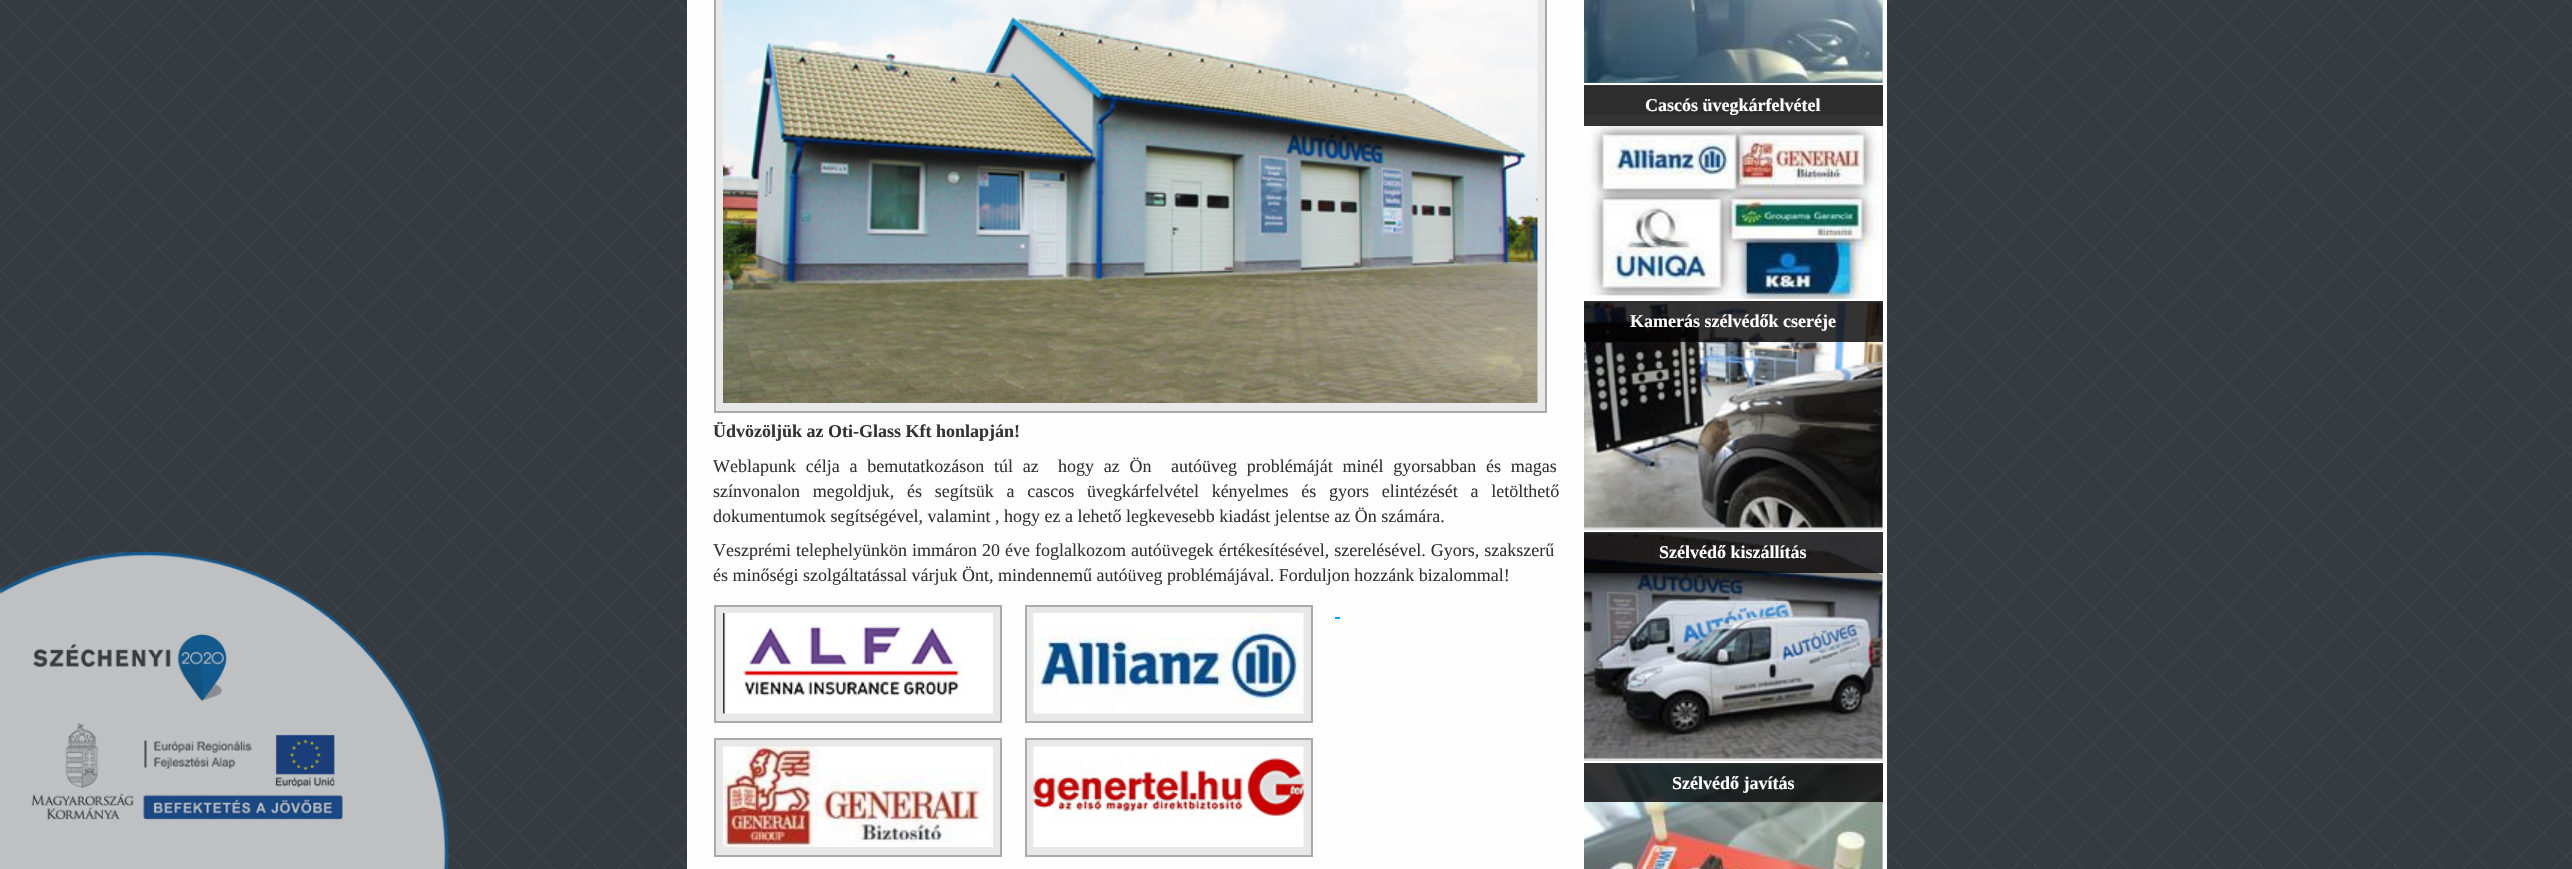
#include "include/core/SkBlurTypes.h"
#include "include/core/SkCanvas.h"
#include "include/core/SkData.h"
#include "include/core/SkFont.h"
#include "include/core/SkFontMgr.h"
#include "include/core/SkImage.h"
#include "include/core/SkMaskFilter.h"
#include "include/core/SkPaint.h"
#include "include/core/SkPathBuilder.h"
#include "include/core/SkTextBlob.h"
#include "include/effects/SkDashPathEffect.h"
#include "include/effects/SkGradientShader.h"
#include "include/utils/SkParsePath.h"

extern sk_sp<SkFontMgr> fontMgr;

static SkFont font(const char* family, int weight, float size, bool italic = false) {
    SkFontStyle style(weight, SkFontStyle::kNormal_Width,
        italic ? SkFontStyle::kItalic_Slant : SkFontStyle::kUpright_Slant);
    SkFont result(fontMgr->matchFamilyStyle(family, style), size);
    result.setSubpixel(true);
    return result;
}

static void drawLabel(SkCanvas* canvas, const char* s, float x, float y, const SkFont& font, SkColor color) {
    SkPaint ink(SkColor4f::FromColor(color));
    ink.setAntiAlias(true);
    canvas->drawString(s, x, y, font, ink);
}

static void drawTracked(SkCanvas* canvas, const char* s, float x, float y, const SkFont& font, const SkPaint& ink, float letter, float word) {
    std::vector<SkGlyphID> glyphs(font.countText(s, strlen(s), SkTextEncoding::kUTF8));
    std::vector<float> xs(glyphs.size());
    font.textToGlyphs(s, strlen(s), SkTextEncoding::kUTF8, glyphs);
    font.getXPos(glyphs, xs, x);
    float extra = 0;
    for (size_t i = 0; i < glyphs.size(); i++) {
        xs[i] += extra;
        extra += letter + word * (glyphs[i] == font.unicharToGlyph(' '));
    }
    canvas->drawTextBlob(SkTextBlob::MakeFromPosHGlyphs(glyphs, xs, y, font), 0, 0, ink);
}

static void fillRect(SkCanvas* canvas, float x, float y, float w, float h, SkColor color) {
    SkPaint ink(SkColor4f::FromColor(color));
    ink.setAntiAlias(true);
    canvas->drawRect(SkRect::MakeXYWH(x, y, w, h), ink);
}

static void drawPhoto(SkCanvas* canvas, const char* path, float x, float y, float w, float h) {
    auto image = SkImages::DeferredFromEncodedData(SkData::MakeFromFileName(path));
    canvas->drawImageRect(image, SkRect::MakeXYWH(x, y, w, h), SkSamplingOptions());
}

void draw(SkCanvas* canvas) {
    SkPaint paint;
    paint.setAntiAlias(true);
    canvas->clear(0xFFFFFFFF);
    drawPhoto(canvas, "assets/img1.png", 0, 0, 2572, 869);
    drawPhoto(canvas, "assets/img2.png", 0, 552, 449, 317);
    fillRect(canvas, 687, 0, 1200, 869, 0xFFFEFEFE);
    paint.setColor(0xFFE8E8E8);
    canvas->drawRect(SkRect::MakeXYWH(715, -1, 831, 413), paint);
    paint.setStroke(true);
    paint.setStrokeWidth(2);
    paint.setColor(0xFFAAAAAA);
    canvas->drawRect(SkRect::MakeXYWH(715, -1, 831, 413), paint);
    drawPhoto(canvas, "assets/img3.png", 723, 0, 815, 403);
    SkFont font1 = font("Liberation Serif", 700, 18);
    drawLabel(canvas, "Üdvözöljük az Oti-Glass Kft honlapján!", 713, 437, font1, 0xFF333333);
    SkFont font2 = font("Liberation Serif", 400, 18);
    paint.setStroke(false);
    paint.setColor(0xFF333333);
    drawTracked(canvas, "Weblapunk célja a bemutatkozáson túl az  hogy az Ön  autóüveg problémáját minél gyorsabban és magas", 713, 472, font2, paint, 0, 5.25f);
    drawTracked(canvas, "színvonalon megoldjuk, és segítsük a cascos üvegkárfelvétel kényelmes és gyors elintézését a letölthető", 713, 497, font2, paint, 0, 8.25f);
    drawLabel(canvas, "dokumentumok segítségével, valamint , hogy ez a lehető legkevesebb kiadást jelentse az Ön számára.", 713, 522, font2, 0xFF333333);
    drawTracked(canvas, "Veszprémi telephelyünkön immáron 20 éve foglalkozom autóüvegek értékesítésével, szerelésével. Gyors, szakszerű", 713, 556, font2, paint, 0, 0.5f);
    drawLabel(canvas, "és minőségi szolgáltatással várjuk Önt, mindennemű autóüveg problémájával. Forduljon hozzánk bizalommal!", 713, 581, font2, 0xFF333333);
    paint.setColor(0xFFE8E8E8);
    canvas->drawRect(SkRect::MakeXYWH(715, 606, 286, 116), paint);
    paint.setStroke(true);
    paint.setColor(0xFFAAAAAA);
    canvas->drawRect(SkRect::MakeXYWH(715, 606, 286, 116), paint);
    drawPhoto(canvas, "assets/img4.png", 723, 613, 270, 101);
    paint.setStroke(false);
    paint.setColor(0xFFE8E8E8);
    canvas->drawRect(SkRect::MakeXYWH(1026, 606, 286, 116), paint);
    paint.setStroke(true);
    paint.setColor(0xFFAAAAAA);
    canvas->drawRect(SkRect::MakeXYWH(1026, 606, 286, 116), paint);
    drawPhoto(canvas, "assets/img5.png", 1033, 613, 271, 101);
    fillRect(canvas, 1335, 617, 5, 2, 0xFF00A4EA);
    paint.setStroke(false);
    paint.setColor(0xFFE8E8E8);
    canvas->drawRect(SkRect::MakeXYWH(715, 739, 286, 117), paint);
    paint.setStroke(true);
    paint.setColor(0xFFAAAAAA);
    canvas->drawRect(SkRect::MakeXYWH(715, 739, 286, 117), paint);
    drawPhoto(canvas, "assets/img6.png", 723, 746, 270, 101);
    paint.setStroke(false);
    paint.setColor(0xFFE8E8E8);
    canvas->drawRect(SkRect::MakeXYWH(1026, 739, 286, 117), paint);
    paint.setStroke(true);
    paint.setColor(0xFFAAAAAA);
    canvas->drawRect(SkRect::MakeXYWH(1026, 739, 286, 117), paint);
    drawPhoto(canvas, "assets/img7.png", 1033, 746, 271, 101);
    fillRect(canvas, 1584, 0, 299, 869, 0xFFDDDDDD);
    drawPhoto(canvas, "assets/img8.png", 1584, 0, 299, 83);
    fillRect(canvas, 1584, 83, 299, 3, 0xFFFEFEFE);
    drawPhoto(canvas, "assets/img9.png", 1584, 115, 299, 184);
    fillRect(canvas, 1584, 299, 299, 3, 0xFFFEFEFE);
    fillRect(canvas, 1584, 85, 299, 41, 0xCC010001);
    drawLabel(canvas, "Cascós üvegkárfelvétel", 1645, 111, font1, 0xFFFFFFFF);
    drawPhoto(canvas, "assets/img10.png", 1584, 302, 299, 226);
    fillRect(canvas, 1584, 530, 299, 3, 0xFFFEFEFE);
    fillRect(canvas, 1584, 301, 299, 41, 0xCC010001);
    drawLabel(canvas, "Kamerás szélvédők cseréje", 1630, 327, font1, 0xFFFFFFFF);
    drawPhoto(canvas, "assets/img11.png", 1584, 533, 299, 226);
    fillRect(canvas, 1584, 761, 299, 3, 0xFFFEFEFE);
    fillRect(canvas, 1584, 532, 299, 41, 0xCC010001);
    drawLabel(canvas, "Szélvédő kiszállítás", 1659, 558, font1, 0xFFFFFFFF);
    drawPhoto(canvas, "assets/img12.png", 1584, 764, 299, 105);
    fillRect(canvas, 1584, 763, 299, 39, 0xCC010001);
    drawLabel(canvas, "Szélvédő javítás", 1672, 789, font1, 0xFFFFFFFF);
}
